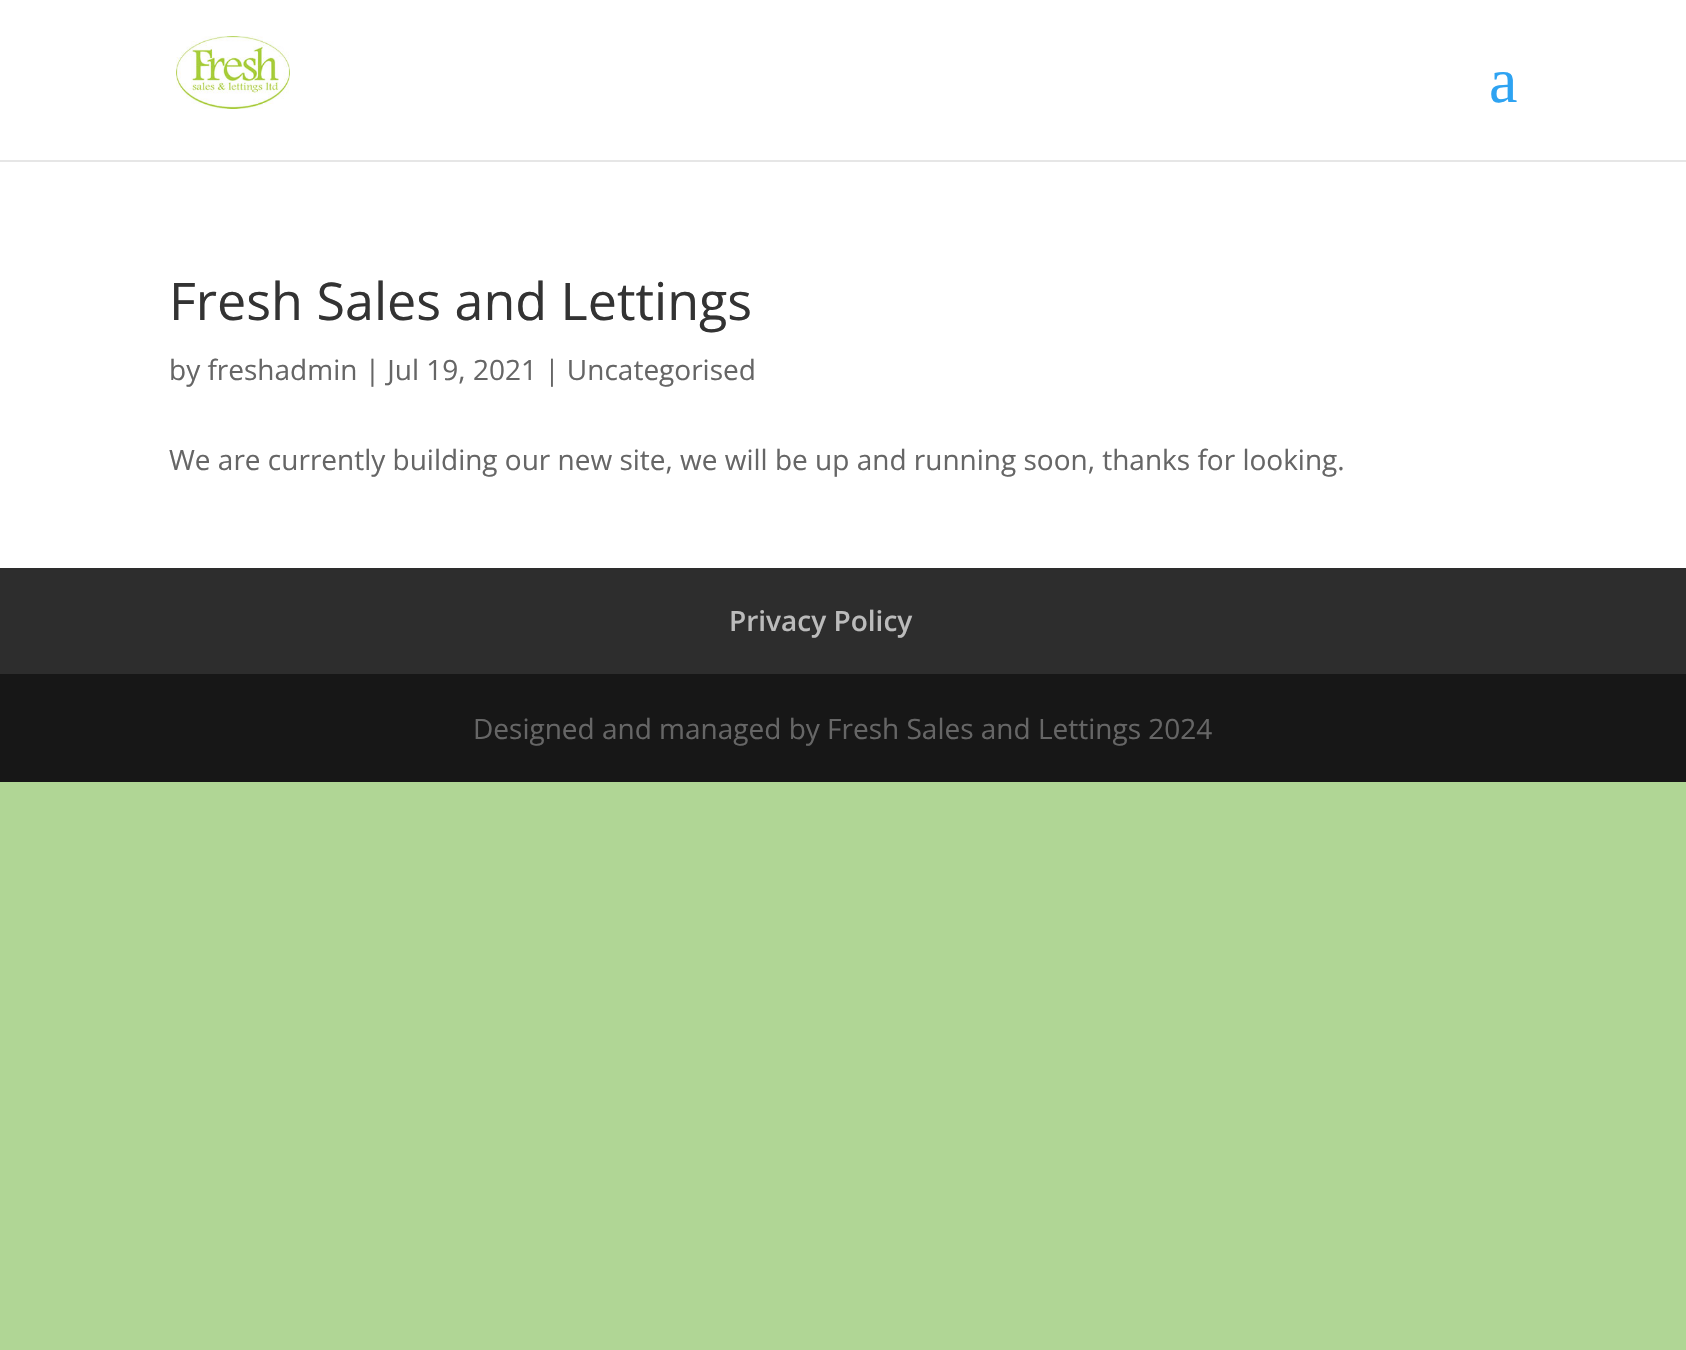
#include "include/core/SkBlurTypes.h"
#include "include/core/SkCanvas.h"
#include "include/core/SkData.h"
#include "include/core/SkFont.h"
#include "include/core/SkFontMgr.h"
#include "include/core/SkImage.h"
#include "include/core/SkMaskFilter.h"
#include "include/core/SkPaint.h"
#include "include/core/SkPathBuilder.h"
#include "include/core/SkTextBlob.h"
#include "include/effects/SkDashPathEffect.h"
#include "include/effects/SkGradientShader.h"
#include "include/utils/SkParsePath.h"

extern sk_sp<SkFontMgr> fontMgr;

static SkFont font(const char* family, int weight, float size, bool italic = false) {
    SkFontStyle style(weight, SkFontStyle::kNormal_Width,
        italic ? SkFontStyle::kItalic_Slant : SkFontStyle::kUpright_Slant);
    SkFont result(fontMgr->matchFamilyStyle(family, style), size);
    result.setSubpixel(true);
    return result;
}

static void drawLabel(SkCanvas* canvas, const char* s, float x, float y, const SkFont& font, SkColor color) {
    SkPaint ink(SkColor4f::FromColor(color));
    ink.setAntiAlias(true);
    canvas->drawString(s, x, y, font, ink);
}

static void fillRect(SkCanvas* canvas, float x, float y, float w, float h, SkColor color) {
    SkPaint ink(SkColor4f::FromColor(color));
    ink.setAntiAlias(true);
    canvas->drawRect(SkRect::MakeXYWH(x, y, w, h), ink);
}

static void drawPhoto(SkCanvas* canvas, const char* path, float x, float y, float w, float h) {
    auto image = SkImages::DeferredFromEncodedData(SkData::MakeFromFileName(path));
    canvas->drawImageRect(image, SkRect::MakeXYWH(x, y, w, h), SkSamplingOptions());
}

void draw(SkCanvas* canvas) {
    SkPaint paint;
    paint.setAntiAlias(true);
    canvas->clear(0xFFB0D695);
    fillRect(canvas, 0, 160, 1686, 2, 0xFFE6E6E6);
    fillRect(canvas, 0, 0, 1686, 160, 0xFFFFFFFF);
    drawPhoto(canvas, "assets/img1.png", 176, 36, 114, 73);
    SkFont font1 = font("Liberation Serif", 400, 64);
    drawLabel(canvas, "a", 1489, 102, font1, 0xFF2EA3F2);
    fillRect(canvas, 0, 162, 1686, 406, 0xFFFFFFFF);
    SkFont font2 = font("Open Sans", 400, 52);
    drawLabel(canvas, "Fresh Sales and Lettings", 169, 320, font2, 0xFF333333);
    SkFont font3 = font("Open Sans", 400, 28);
    drawLabel(canvas, "by freshadmin | Jul 19, 2021 | Uncategorised", 169, 380, font3, 0xFF666666);
    drawLabel(canvas, "We are currently building our new site, we will be up and running soon, thanks for looking.", 169, 470, font3, 0xFF666666);
    fillRect(canvas, 0, 568, 1686, 106, 0xFF2D2D2D);
    SkFont font4 = font("Open Sans", 600, 28);
    drawLabel(canvas, "Privacy Policy", 729, 631, font4, 0xFFBBBBBB);
    fillRect(canvas, 0, 674, 1686, 108, 0xFF171717);
    drawLabel(canvas, "Designed and managed by Fresh Sales and Lettings 2024", 473, 739, font3, 0xFF666666);
}
